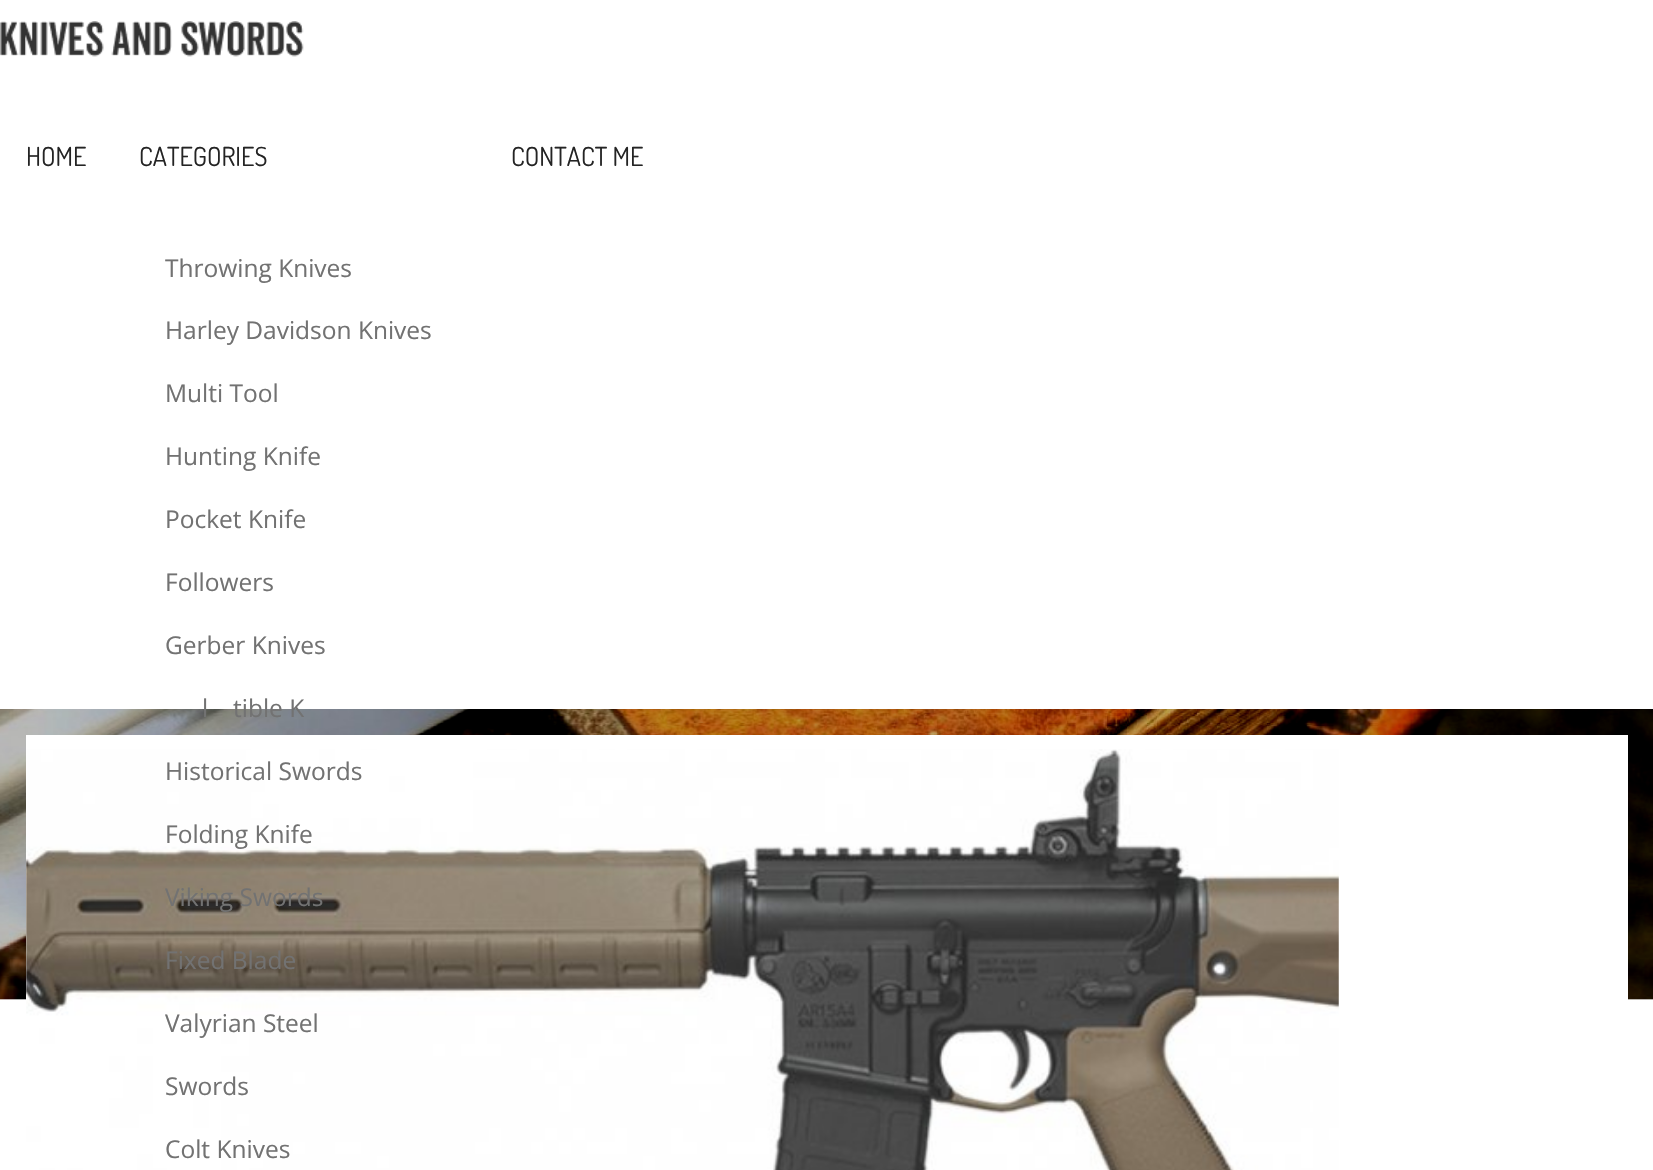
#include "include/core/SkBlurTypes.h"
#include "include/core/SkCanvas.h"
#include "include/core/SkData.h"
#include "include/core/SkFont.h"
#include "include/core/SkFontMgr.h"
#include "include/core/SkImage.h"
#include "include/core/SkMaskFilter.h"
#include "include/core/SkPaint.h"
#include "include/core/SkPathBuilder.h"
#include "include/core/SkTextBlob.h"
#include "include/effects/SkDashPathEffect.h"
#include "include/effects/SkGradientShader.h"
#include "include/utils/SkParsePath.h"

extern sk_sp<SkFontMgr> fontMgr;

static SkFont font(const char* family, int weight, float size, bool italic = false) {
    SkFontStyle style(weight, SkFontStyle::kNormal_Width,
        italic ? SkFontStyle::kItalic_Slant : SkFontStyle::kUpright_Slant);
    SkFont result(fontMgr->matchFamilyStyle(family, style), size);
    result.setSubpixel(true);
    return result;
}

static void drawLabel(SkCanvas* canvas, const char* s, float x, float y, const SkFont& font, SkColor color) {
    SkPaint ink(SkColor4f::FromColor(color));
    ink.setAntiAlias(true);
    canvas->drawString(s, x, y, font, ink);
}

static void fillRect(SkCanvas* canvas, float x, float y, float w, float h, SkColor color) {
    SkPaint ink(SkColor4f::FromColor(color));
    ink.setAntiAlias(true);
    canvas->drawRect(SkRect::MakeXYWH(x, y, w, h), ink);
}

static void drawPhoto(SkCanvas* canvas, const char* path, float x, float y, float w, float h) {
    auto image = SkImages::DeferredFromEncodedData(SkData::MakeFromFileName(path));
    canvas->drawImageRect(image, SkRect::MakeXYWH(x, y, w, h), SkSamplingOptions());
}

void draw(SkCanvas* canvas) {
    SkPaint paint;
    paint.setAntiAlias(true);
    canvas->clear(0xFFFFFFFF);
    drawPhoto(canvas, "assets/img1.png", 0, 21, 304, 36);
    SkFont font1 = font("Dosis", 400, 26.25f);
    drawLabel(canvas, "HOME", 26, 166, font1, 0xFF242424);
    drawLabel(canvas, "CATEGORIES", 139, 166, font1, 0xFF242424);
    SkFont font2 = font("Open Sans", 400, 24.5f);
    drawLabel(canvas, "Throwing Knives", 165, 277, font2, 0xFF727272);
    drawLabel(canvas, "Harley Davidson Knives", 165, 339, font2, 0xFF727272);
    drawLabel(canvas, "Multi Tool", 165, 402, font2, 0xFF727272);
    drawLabel(canvas, "Hunting Knife", 165, 465, font2, 0xFF727272);
    drawLabel(canvas, "Pocket Knife", 165, 528, font2, 0xFF727272);
    drawLabel(canvas, "Followers", 165, 591, font2, 0xFF727272);
    drawLabel(canvas, "Gerber Knives", 165, 654, font2, 0xFF727272);
    drawPhoto(canvas, "assets/img2.png", 0, 709, 1653, 291);
    drawLabel(canvas, "l", 202, 717, font2, 0xFF727272);
    drawLabel(canvas, "tible K", 233, 717, font2, 0xFF727272);
    fillRect(canvas, 26, 735, 1602, 265, 0xFFFFFFFF);
    drawPhoto(canvas, "assets/img3.png", 26, 749, 1313, 421);
    drawLabel(canvas, "Historical Swords", 165, 780, font2, 0xFF727272);
    drawLabel(canvas, "Folding Knife", 165, 843, font2, 0xFF727272);
    drawLabel(canvas, "Viking Swords", 165, 906, font2, 0xFF727272);
    drawLabel(canvas, "Fixed Blade", 165, 969, font2, 0xFF727272);
    drawLabel(canvas, "Valyrian Steel", 165, 1032, font2, 0xFF727272);
    drawLabel(canvas, "Swords", 165, 1095, font2, 0xFF727272);
    drawLabel(canvas, "Colt Knives", 165, 1158, font2, 0xFF727272);
    drawLabel(canvas, "CONTACT ME", 511, 166, font1, 0xFF242424);
}
